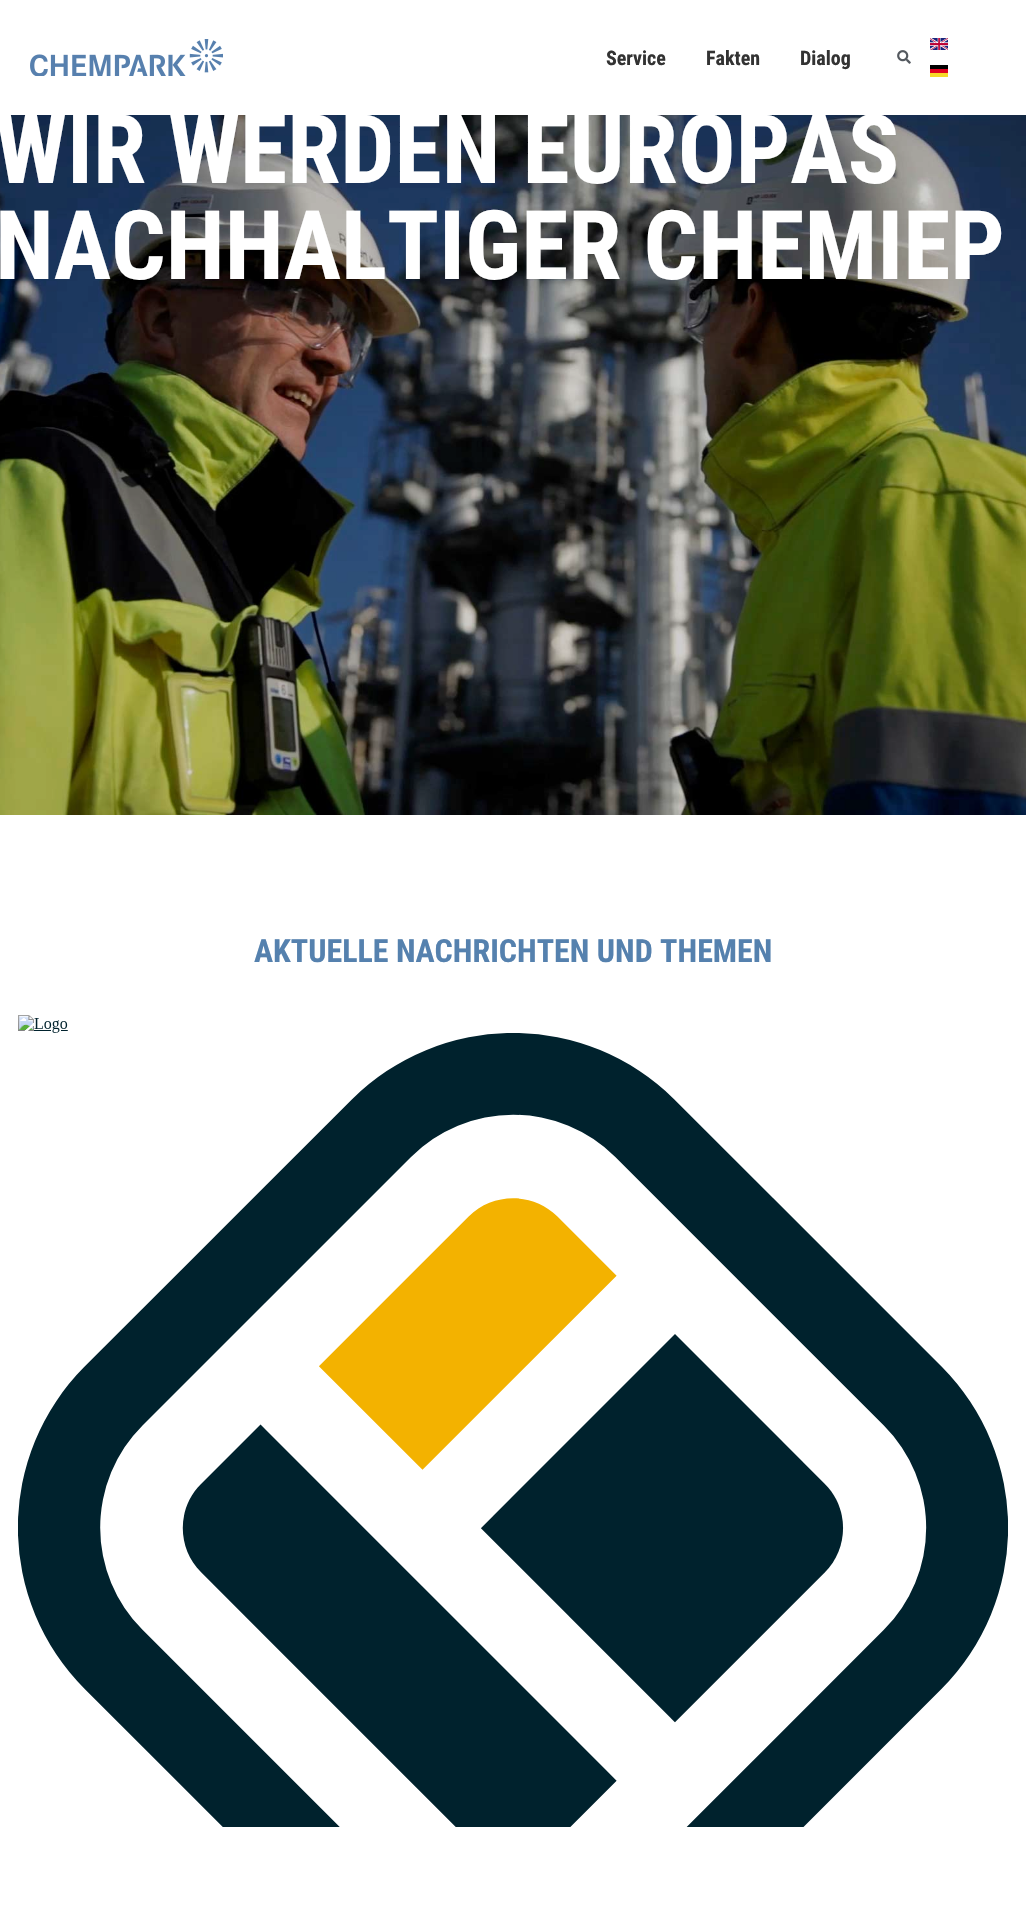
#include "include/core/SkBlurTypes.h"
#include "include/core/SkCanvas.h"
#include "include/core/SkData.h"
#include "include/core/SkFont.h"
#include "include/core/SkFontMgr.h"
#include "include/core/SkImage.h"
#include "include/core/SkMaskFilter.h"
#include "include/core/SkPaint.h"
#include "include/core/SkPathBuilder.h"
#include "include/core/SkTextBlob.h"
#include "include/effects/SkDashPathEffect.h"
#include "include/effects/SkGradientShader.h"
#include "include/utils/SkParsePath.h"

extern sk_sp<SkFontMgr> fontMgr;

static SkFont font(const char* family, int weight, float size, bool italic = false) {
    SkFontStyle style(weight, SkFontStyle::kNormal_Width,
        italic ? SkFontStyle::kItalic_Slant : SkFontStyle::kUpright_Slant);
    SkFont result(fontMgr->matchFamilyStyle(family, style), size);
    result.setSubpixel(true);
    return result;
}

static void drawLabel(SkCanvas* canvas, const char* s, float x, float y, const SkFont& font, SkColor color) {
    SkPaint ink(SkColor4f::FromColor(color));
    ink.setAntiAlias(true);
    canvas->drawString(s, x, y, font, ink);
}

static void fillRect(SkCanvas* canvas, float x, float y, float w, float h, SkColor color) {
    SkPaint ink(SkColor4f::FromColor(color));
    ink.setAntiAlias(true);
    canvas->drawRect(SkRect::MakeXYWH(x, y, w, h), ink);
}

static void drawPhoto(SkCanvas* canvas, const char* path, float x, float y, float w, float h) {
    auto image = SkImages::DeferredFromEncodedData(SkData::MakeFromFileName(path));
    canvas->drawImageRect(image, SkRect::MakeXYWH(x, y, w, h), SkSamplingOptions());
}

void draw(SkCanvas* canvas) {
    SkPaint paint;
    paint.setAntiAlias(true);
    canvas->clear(0xFFFFFFFF);
    drawPhoto(canvas, "assets/img1.png", 30, 39, 193, 37);
    SkFont font1 = font("Roboto Condensed", 700, 20);
    drawLabel(canvas, "Service", 606, 65, font1, 0xFF333333);
    drawLabel(canvas, "Fakten", 706, 65, font1, 0xFF333333);
    drawLabel(canvas, "Dialog", 800, 65, font1, 0xFF333333);
    drawPhoto(canvas, "assets/img2.png", 897, 50, 14, 14);
    drawPhoto(canvas, "assets/img3.png", 930, 38, 18, 12);
    fillRect(canvas, 930, 65, 18, 4, 0xFF000000);
    fillRect(canvas, 930, 69, 18, 4, 0xFFE1001F);
    fillRect(canvas, 930, 73, 18, 4, 0xFFF6D928);
    drawPhoto(canvas, "assets/img4.png", 0, 115, 1026, 700);
    SkFont font2 = font("Roboto Condensed", 700, 96);
    drawLabel(canvas, "WIR WERDEN EUROPAS", -5, 183, font2, 0xFFFFFFFF);
    drawLabel(canvas, "NACHHALTIGER CHEMIEP", -5, 279, font2, 0xFFFFFFFF);
    SkFont font3 = font("Roboto Condensed", 700, 32);
    drawLabel(canvas, "AKTUELLE NACHRICHTEN UND THEMEN", 254, 962, font3, 0xFF5581AE);
    drawPhoto(canvas, "assets/img5.png", 18, 1015, 990, 812);
}
